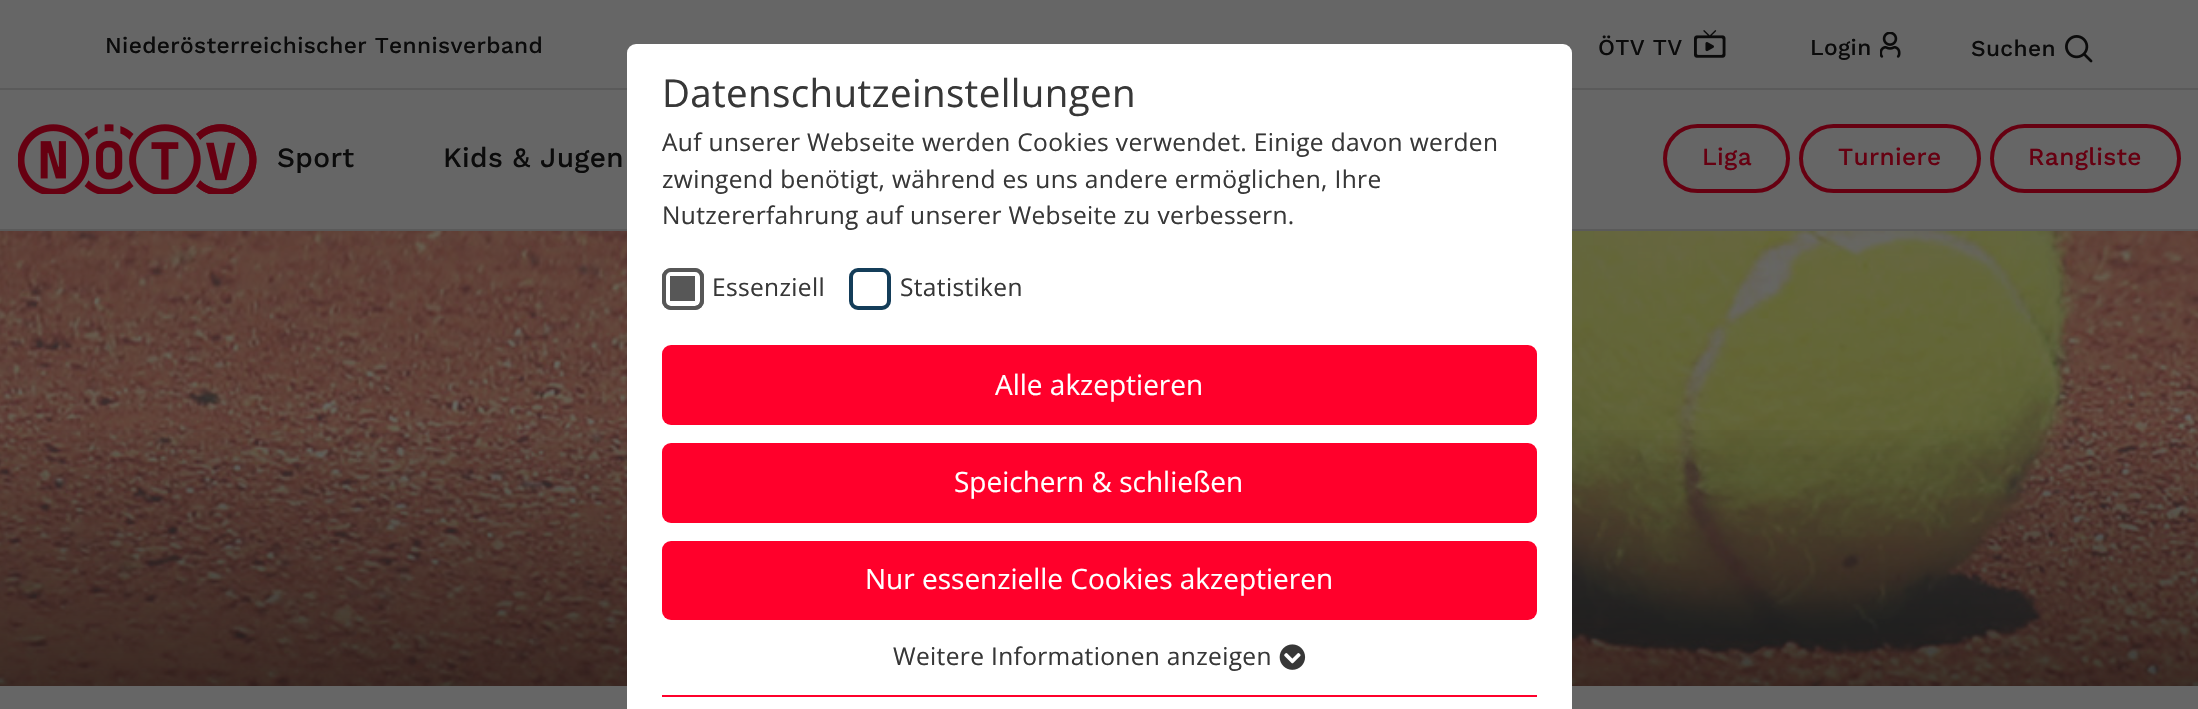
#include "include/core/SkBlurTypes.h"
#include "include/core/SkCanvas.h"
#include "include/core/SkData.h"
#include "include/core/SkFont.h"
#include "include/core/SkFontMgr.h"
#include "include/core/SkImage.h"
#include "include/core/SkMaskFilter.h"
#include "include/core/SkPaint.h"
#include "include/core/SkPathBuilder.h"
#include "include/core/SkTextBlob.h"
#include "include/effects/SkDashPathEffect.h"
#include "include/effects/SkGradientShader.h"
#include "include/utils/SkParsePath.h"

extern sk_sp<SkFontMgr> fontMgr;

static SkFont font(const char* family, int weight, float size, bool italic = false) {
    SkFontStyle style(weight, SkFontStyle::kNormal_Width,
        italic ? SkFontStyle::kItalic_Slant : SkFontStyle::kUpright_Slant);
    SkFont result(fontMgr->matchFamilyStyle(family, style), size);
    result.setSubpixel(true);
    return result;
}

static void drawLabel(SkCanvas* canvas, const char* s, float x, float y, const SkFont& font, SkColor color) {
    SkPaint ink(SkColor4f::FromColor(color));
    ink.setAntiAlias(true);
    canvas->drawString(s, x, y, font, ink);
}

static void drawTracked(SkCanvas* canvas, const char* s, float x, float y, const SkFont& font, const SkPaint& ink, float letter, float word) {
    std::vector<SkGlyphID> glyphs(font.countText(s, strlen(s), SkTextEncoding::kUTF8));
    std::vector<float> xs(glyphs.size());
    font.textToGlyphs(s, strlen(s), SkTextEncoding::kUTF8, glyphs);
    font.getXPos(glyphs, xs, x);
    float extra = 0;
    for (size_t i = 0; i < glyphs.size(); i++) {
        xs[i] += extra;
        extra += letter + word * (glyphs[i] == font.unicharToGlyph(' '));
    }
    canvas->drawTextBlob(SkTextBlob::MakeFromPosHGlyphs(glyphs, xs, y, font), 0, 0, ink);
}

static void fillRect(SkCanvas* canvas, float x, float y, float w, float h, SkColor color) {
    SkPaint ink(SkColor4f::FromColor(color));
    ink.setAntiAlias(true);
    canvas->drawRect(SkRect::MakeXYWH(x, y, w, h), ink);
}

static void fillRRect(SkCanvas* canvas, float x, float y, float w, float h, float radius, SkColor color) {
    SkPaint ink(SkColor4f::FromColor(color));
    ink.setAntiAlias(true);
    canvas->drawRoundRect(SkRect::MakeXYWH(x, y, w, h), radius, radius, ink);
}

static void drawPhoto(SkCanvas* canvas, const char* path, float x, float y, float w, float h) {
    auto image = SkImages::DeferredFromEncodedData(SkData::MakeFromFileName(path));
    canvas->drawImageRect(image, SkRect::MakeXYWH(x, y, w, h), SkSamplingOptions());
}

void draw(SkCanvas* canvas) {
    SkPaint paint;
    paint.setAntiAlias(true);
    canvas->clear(0xFF666666);
    fillRect(canvas, 0, 88, 2198, 2, 0xFF5A5A5A);
    SkFont font1 = font("Work Sans", 500, 22.75f);
    paint.setColor(0xFF0B0B0B);
    drawTracked(canvas, "Niederösterreichischer Tennisverband", 105, 53, font1, paint, 0.35f, 0);
    drawTracked(canvas, "ÖTV TV", 1598, 55, font1, paint, 0.35f, 0);
    drawPhoto(canvas, "assets/img1.png", 1694, 30, 32, 28);
    drawTracked(canvas, "Login", 1810, 55, font1, paint, 0.35f, 0);
    drawPhoto(canvas, "assets/img2.png", 1880, 32, 21, 26);
    drawTracked(canvas, "Suchen", 1971, 56, font1, paint, 0.35f, 0);
    drawPhoto(canvas, "assets/img3.png", 2065, 35, 28, 28);
    fillRect(canvas, 0, 229, 2198, 2, 0xFF5A5A5A);
    drawPhoto(canvas, "assets/img4.png", 18, 124, 239, 70);
    SkFont font2 = font("Work Sans", 500, 28);
    drawTracked(canvas, "Sport", 277, 167, font2, paint, 0.35f, 0);
    drawTracked(canvas, "Kids & Jugen", 443, 167, font2, paint, 0.35f, 0);
    paint.setStroke(true);
    paint.setStrokeWidth(4);
    paint.setColor(0xFF660011);
    canvas->drawRoundRect(SkRect::MakeXYWH(1665, 126, 123, 65), 32.5f, 32.5f, paint);
    SkFont font3 = font("Work Sans", 500, 24.5f);
    paint.setStroke(false);
    drawTracked(canvas, "Liga", 1702, 165, font3, paint, 0.35f, 0);
    paint.setStroke(true);
    canvas->drawRoundRect(SkRect::MakeXYWH(1801, 126, 178, 65), 32.5f, 32.5f, paint);
    paint.setStroke(false);
    drawTracked(canvas, "Turniere", 1838, 165, font3, paint, 0.35f, 0);
    paint.setStroke(true);
    canvas->drawRoundRect(SkRect::MakeXYWH(1992, 126, 187, 65), 32.5f, 32.5f, paint);
    paint.setStroke(false);
    drawTracked(canvas, "Rangliste", 2028, 165, font3, paint, 0.35f, 0);
    drawPhoto(canvas, "assets/img5.png", 0, 231, 2198, 455);
    {
        const SkColor colors[] = {0x00000000, 0x66000000};
        const float stops[] = {0, 1};
        const SkPoint ends[] = {{1099, 413}, {1099, 686}};
        paint.setShader(SkGradientShader::MakeLinear(ends, colors, stops, 2, SkTileMode::kClamp));
        paint.setAlpha(255);
    }
    canvas->drawRect(SkRect::MakeXYWH(0, 430, 2198, 256), paint);
    fillRRect(canvas, 627, 44, 945, 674, 9, 0xFFFFFFFF);
    SkFont font4 = font("Open Sans", 400, 38.5f);
    paint.setShader(nullptr);
    paint.setColor(0xFF373737);
    drawTracked(canvas, "Datenschutzeinstellungen", 662, 107, font4, paint, 0.35f, 0);
    SkFont font5 = font("Open Sans", 400, 24.5f);
    drawTracked(canvas, "Auf unserer Webseite werden Cookies verwendet. Einige davon werden", 662, 151, font5, paint, 0.35f, 0);
    drawTracked(canvas, "zwingend benötigt, während es uns andere ermöglichen, Ihre", 662, 188, font5, paint, 0.35f, 0);
    drawTracked(canvas, "Nutzererfahrung auf unserer Webseite zu verbessern.", 662, 224, font5, paint, 0.35f, 0);
    fillRRect(canvas, 662, 268, 42, 42, 9, 0xFF575757);
    paint.setStroke(true);
    paint.setStrokeWidth(5);
    paint.setColor(0xFFFFFFFF);
    canvas->drawRoundRect(SkRect::MakeXYWH(667.5f, 273.5f, 30, 30), 2.5f, 2.5f, paint);
    paint.setStrokeWidth(4);
    paint.setColor(0xFF575757);
    canvas->drawRoundRect(SkRect::MakeXYWH(664, 270, 38, 38), 7, 7, paint);
    paint.setStroke(false);
    paint.setColor(0xFF373737);
    drawTracked(canvas, "Essenziell", 712, 296, font5, paint, 0.35f, 0);
    paint.setStroke(true);
    paint.setColor(0xFF143D59);
    canvas->drawRoundRect(SkRect::MakeXYWH(851, 270, 38, 38), 7, 7, paint);
    paint.setStroke(false);
    paint.setColor(0xFF373737);
    drawTracked(canvas, "Statistiken", 900, 296, font5, paint, 0.35f, 0);
    fillRRect(canvas, 662, 345, 875, 80, 9, 0xFFFF002B);
    SkFont font6 = font("Open Sans", 400, 28);
    drawLabel(canvas, "Alle akzeptieren", 995, 395, font6, 0xFFFFFFFF);
    fillRRect(canvas, 662, 443, 875, 80, 9, 0xFFFF002B);
    drawLabel(canvas, "Speichern & schließen", 954, 492, font6, 0xFFFFFFFF);
    fillRRect(canvas, 662, 541, 875, 79, 9, 0xFFFF002B);
    drawLabel(canvas, "Nur essenzielle Cookies akzeptieren", 865, 589, font6, 0xFFFFFFFF);
    drawTracked(canvas, "Weitere Informationen anzeigen", 893, 665, font5, paint, 0.35f, 0);
    drawPhoto(canvas, "assets/img6.png", 1279, 644, 27, 26);
    fillRect(canvas, 662, 695, 875, 2, 0xFFFF002B);
}
